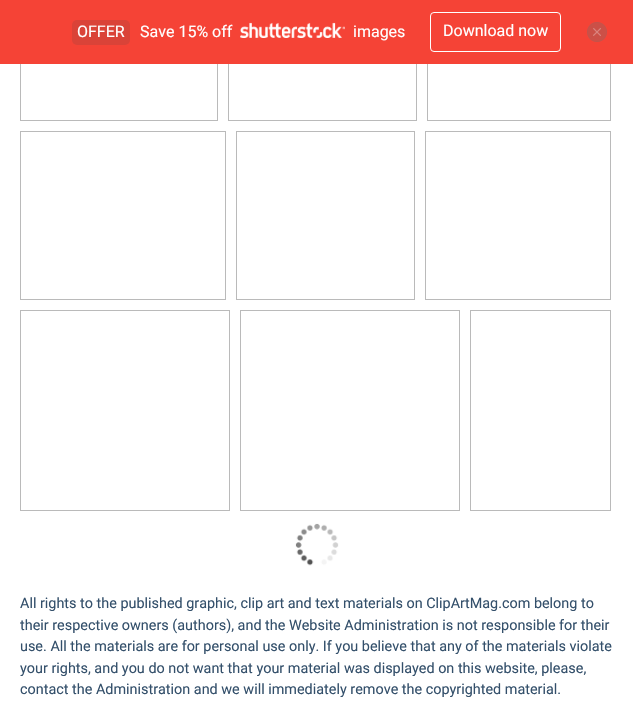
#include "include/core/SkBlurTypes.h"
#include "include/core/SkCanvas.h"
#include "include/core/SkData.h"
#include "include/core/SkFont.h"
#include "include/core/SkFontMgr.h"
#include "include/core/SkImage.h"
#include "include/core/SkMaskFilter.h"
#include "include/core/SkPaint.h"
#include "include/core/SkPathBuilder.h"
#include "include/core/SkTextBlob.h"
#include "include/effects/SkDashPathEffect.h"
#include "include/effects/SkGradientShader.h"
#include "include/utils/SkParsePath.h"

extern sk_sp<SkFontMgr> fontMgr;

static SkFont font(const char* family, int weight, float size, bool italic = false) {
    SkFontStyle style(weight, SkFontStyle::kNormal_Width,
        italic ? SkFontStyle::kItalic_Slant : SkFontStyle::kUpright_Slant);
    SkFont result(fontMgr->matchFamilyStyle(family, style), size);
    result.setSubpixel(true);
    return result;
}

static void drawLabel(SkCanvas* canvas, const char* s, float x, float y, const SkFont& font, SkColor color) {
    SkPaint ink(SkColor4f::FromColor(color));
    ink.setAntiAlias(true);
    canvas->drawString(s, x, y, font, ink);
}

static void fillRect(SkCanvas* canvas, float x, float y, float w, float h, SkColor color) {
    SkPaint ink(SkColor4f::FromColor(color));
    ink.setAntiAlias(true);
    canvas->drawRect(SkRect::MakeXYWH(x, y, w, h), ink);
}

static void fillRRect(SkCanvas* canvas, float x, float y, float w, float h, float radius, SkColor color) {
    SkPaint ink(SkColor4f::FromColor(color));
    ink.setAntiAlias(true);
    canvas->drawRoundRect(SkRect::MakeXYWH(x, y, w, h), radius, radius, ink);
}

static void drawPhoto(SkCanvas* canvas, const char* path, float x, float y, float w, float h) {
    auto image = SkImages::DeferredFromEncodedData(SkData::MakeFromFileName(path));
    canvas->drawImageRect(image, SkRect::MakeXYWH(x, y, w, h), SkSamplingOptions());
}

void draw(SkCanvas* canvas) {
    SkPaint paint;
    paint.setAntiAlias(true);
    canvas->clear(0xFFFFFFFF);
    fillRect(canvas, 0, 0, 633, 64, 0xFFF54336);
    fillRRect(canvas, 72, 20, 58, 25, 5, 0xFFDA4338);
    SkFont font1 = font("Roboto", 400, 16);
    drawLabel(canvas, "OFFER", 77, 37, font1, 0xFFFFFFFF);
    drawLabel(canvas, "Save 15% off", 140, 37, font1, 0xFFFFFFFF);
    drawPhoto(canvas, "assets/img1.png", 240, 22, 105, 16);
    drawLabel(canvas, "images", 353, 37, font1, 0xFFFFFFFF);
    paint.setStroke(true);
    paint.setStrokeWidth(1);
    paint.setColor(0xFFFFFFFF);
    canvas->drawRoundRect(SkRect::MakeXYWH(430.5f, 12.5f, 130, 39), 3.5f, 3.5f, paint);
    drawLabel(canvas, "Download now", 443, 36, font1, 0xFFFFFFFF);
    drawPhoto(canvas, "assets/img2.png", 587, 22, 20, 20);
    fillRect(canvas, 20, 120, 198, 1, 0xFFBABABA);
    fillRect(canvas, 217, 64, 1, 56, 0xFFBABABA);
    fillRect(canvas, 20, 64, 1, 56, 0xFFBABABA);
    fillRect(canvas, 228, 120, 189, 1, 0xFFBABABA);
    fillRect(canvas, 416, 64, 1, 56, 0xFFBABABA);
    fillRect(canvas, 228, 64, 1, 56, 0xFFBABABA);
    fillRect(canvas, 427, 120, 184, 1, 0xFFBABABA);
    fillRect(canvas, 610, 64, 1, 56, 0xFFBABABA);
    fillRect(canvas, 427, 64, 1, 56, 0xFFBABABA);
    fillRect(canvas, 20, 299, 206, 1, 0xFFBABABA);
    fillRect(canvas, 20, 131, 206, 1, 0xFFBABABA);
    fillRect(canvas, 225, 131, 1, 168, 0xFFBABABA);
    fillRect(canvas, 20, 131, 1, 168, 0xFFBABABA);
    fillRect(canvas, 236, 299, 179, 1, 0xFFBABABA);
    fillRect(canvas, 236, 131, 179, 1, 0xFFBABABA);
    fillRect(canvas, 414, 131, 1, 168, 0xFFBABABA);
    fillRect(canvas, 236, 131, 1, 168, 0xFFBABABA);
    fillRect(canvas, 425, 299, 186, 1, 0xFFBABABA);
    fillRect(canvas, 425, 131, 186, 1, 0xFFBABABA);
    fillRect(canvas, 610, 131, 1, 168, 0xFFBABABA);
    fillRect(canvas, 425, 131, 1, 168, 0xFFBABABA);
    fillRect(canvas, 20, 510, 210, 1, 0xFFBABABA);
    fillRect(canvas, 20, 310, 210, 1, 0xFFBABABA);
    fillRect(canvas, 229, 310, 1, 200, 0xFFBABABA);
    fillRect(canvas, 20, 310, 1, 200, 0xFFBABABA);
    fillRect(canvas, 240, 510, 220, 1, 0xFFBABABA);
    fillRect(canvas, 240, 310, 220, 1, 0xFFBABABA);
    fillRect(canvas, 459, 310, 1, 200, 0xFFBABABA);
    fillRect(canvas, 240, 310, 1, 200, 0xFFBABABA);
    fillRect(canvas, 470, 510, 141, 1, 0xFFBABABA);
    fillRect(canvas, 470, 310, 141, 1, 0xFFBABABA);
    fillRect(canvas, 610, 310, 1, 200, 0xFFBABABA);
    fillRect(canvas, 470, 310, 1, 200, 0xFFBABABA);
    drawPhoto(canvas, "assets/img3.png", 295, 523, 44, 43);
    SkFont font2 = font("Roboto", 400, 14.4f);
    drawLabel(canvas, "All rights to the published graphic, clip art and text materials on ClipArtMag.com belong to", 20, 608, font2, 0xFF34506B);
    drawLabel(canvas, "their respective owners (authors), and the Website Administration is not responsible for their", 20, 630, font2, 0xFF34506B);
    drawLabel(canvas, "use. All the materials are for personal use only. If you believe that any of the materials violate", 20, 651, font2, 0xFF34506B);
    drawLabel(canvas, "your rights, and you do not want that your material was displayed on this website, please,", 20, 673, font2, 0xFF34506B);
    drawLabel(canvas, "contact the Administration and we will immediately remove the copyrighted material.", 20, 694, font2, 0xFF34506B);
}
